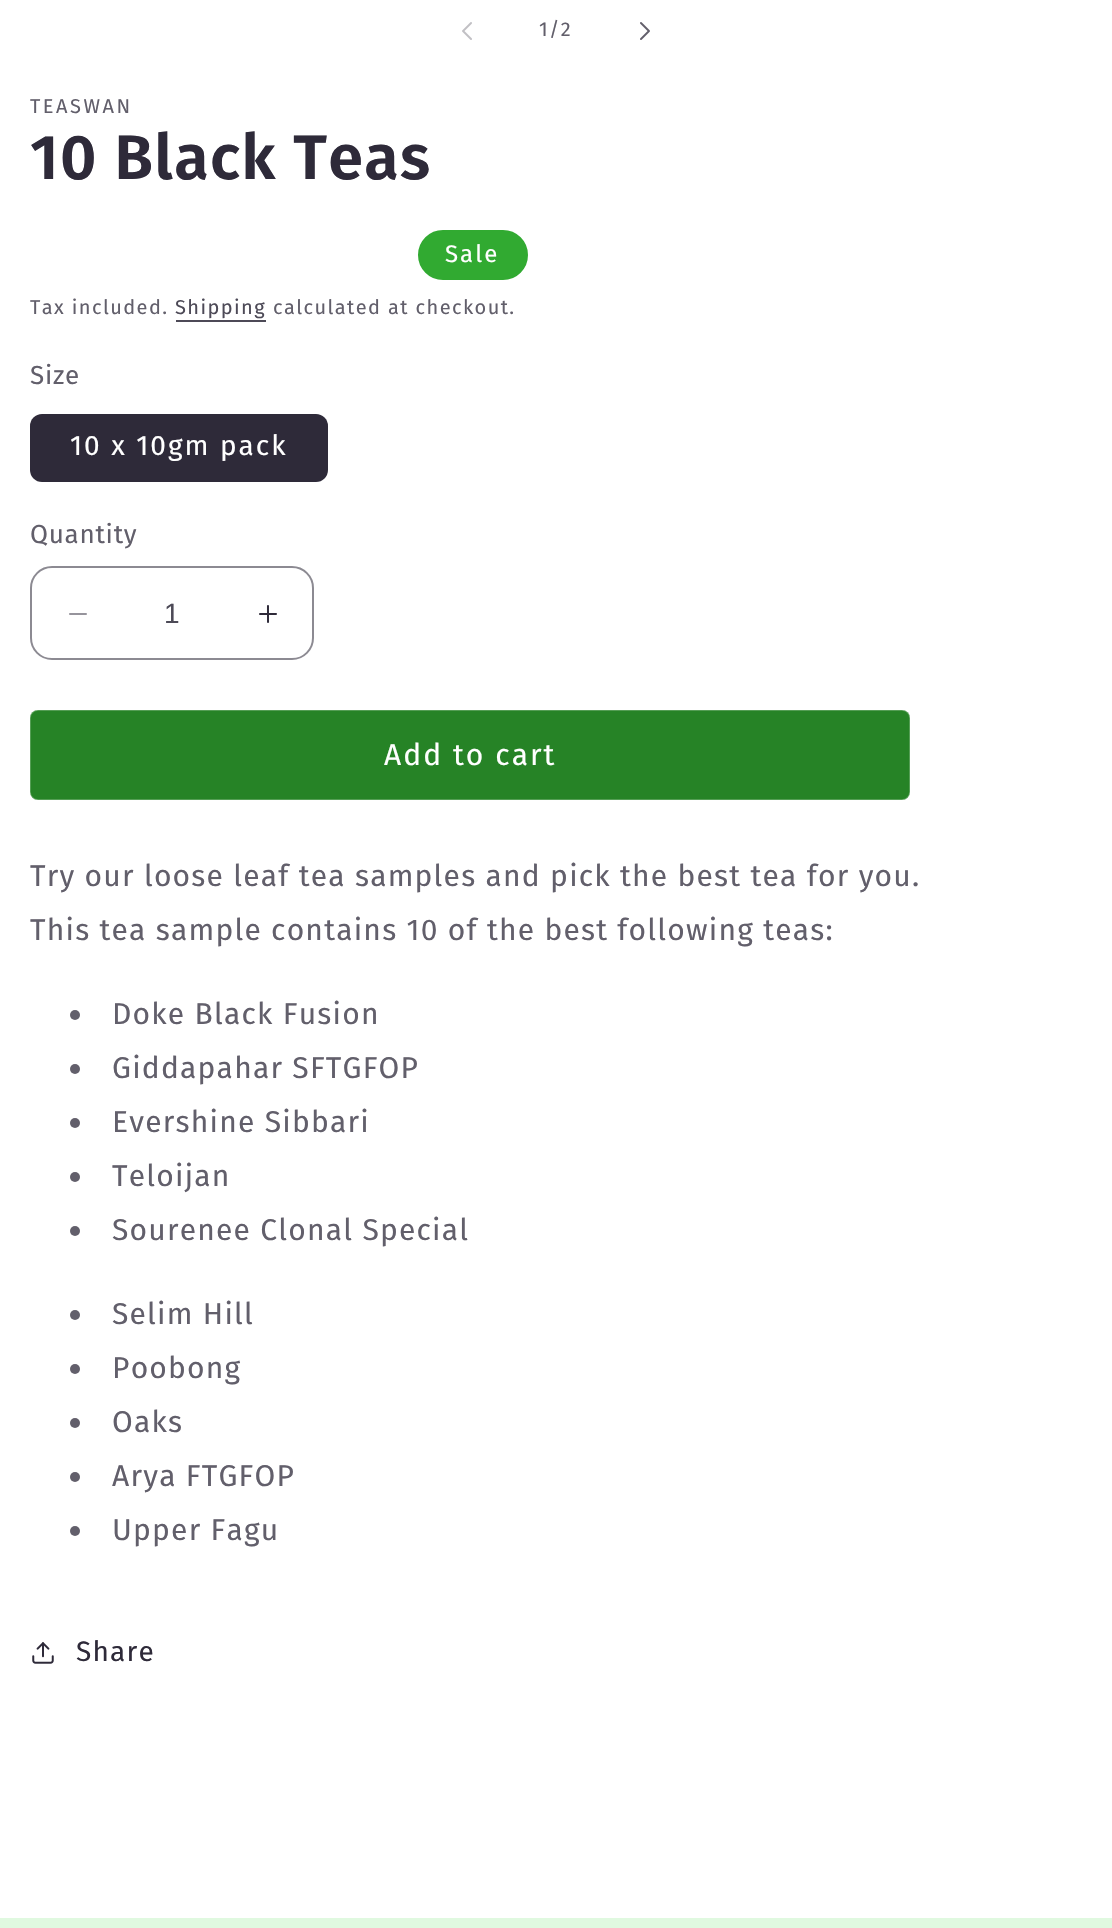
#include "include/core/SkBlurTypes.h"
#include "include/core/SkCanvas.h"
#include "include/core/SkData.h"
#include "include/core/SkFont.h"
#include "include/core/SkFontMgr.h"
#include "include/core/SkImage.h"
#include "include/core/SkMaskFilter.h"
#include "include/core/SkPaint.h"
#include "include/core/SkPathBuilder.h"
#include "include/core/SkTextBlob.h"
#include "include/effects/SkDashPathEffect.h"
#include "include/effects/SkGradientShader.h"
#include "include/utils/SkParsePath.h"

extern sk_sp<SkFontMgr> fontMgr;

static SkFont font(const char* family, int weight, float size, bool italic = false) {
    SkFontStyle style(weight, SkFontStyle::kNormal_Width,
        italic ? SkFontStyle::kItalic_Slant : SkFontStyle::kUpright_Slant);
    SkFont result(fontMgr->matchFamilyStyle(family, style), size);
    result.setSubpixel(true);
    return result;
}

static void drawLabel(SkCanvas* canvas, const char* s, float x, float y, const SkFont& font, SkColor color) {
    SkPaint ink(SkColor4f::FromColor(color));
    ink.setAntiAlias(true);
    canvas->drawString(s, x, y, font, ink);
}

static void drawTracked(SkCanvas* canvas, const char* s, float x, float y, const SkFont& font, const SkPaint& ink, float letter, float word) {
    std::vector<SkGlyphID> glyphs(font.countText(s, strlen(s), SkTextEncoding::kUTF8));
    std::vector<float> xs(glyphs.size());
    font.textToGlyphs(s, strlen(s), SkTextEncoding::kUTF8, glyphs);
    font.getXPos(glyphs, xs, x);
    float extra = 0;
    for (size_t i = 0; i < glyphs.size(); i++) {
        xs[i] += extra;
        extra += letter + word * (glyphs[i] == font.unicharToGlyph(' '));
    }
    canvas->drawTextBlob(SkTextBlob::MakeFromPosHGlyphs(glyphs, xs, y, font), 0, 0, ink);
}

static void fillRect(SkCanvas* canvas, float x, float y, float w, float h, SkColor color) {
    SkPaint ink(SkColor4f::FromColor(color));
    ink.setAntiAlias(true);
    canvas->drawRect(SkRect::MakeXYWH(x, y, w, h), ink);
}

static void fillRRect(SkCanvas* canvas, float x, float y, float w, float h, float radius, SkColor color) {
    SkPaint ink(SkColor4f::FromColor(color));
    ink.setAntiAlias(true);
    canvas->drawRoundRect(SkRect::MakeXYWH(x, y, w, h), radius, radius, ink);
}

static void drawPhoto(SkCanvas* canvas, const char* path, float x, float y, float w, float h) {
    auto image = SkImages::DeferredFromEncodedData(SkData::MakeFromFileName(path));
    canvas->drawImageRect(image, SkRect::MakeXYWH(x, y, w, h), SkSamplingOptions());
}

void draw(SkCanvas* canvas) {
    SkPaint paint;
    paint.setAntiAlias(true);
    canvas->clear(0xFFFFFFFF);
    drawPhoto(canvas, "assets/img1.png", 462, 22, 10, 18);
    SkFont font1 = font("Fira Sans", 400, 20);
    paint.setColor(0xFF625F6B);
    drawTracked(canvas, "1/2", 539, 36, font1, paint, 1.4f, 0);
    drawPhoto(canvas, "assets/img2.png", 640, 22, 10, 18);
    drawTracked(canvas, "TEASWAN", 30, 113, font1, paint, 2.5f, 0);
    SkFont font2 = font("Fira Sans", 600, 63);
    paint.setColor(0xFF2E2A39);
    drawTracked(canvas, "10 Black Teas", 30, 179, font2, paint, 1.25f, 0);
    paint.setColor(0xFF31AA31);
    canvas->drawRoundRect(SkRect::MakeXYWH(419, 231, 108, 48), 24, 24, paint);
    paint.setStroke(true);
    paint.setStrokeWidth(2);
    canvas->drawRoundRect(SkRect::MakeXYWH(419, 231, 108, 48), 24, 24, paint);
    SkFont font3 = font("Fira Sans", 400, 24);
    paint.setStroke(false);
    paint.setColor(0xFFFFFFFF);
    drawTracked(canvas, "Sale", 445, 262, font3, paint, 2, 0);
    paint.setColor(0xFF625F6B);
    drawTracked(canvas, "Tax included.", 30, 314, font1, paint, 1.4f, 0);
    paint.setColor(0xFF4D4A57);
    drawTracked(canvas, "Shipping", 175, 314, font1, paint, 1.4f, 0);
    fillRect(canvas, 176, 320, 90, 2, 0xFF4D4A57);
    paint.setColor(0xFF625F6B);
    drawTracked(canvas, "calculated at checkout.", 273, 314, font1, paint, 1.4f, 0);
    SkFont font4 = font("Fira Sans", 400, 26);
    drawTracked(canvas, "Size", 30, 384, font4, paint, 0.75f, 0);
    fillRRect(canvas, 30, 414, 298, 68, 12, 0xFF2E2A39);
    SkFont font5 = font("Fira Sans", 400, 28);
    paint.setColor(0xFFFFFFFF);
    drawTracked(canvas, "10 x 10gm pack", 70, 455, font5, paint, 2, 0);
    paint.setColor(0xFF625F6B);
    drawTracked(canvas, "Quantity", 30, 543, font4, paint, 0.75f, 0);
    drawPhoto(canvas, "assets/img3.png", 69, 613, 18, 2);
    drawPhoto(canvas, "assets/img4.png", 259, 605, 18, 18);
    paint.setStroke(true);
    paint.setColor(0xFF8C8A92);
    canvas->drawRoundRect(SkRect::MakeXYWH(31, 567, 282, 92), 21, 21, paint);
    SkFont font6 = font("Liberation Sans", 400, 28);
    drawLabel(canvas, "1", 164, 623, font6, 0xFF4D4A57);
    fillRRect(canvas, 30, 710, 880, 90, 8, 0xFF268326);
    paint.setStrokeWidth(0.6f);
    paint.setColor(0x73FFFFFF);
    canvas->drawRoundRect(SkRect::MakeXYWH(30.3f, 710.3f, 879.4f, 89.4f), 7.7f, 7.7f, paint);
    SkFont font7 = font("Fira Sans", 400, 30);
    paint.setStroke(false);
    paint.setColor(0xFFFFFFFF);
    drawTracked(canvas, "Add to cart", 384, 765, font7, paint, 2, 0);
    paint.setColor(0xFF625F6B);
    drawTracked(canvas, "Try our loose leaf tea samples and pick the best tea for you.", 30, 886, font7, paint, 1.2f, 0);
    drawTracked(canvas, "This tea sample contains 10 of the best following teas:", 30, 940, font7, paint, 1.2f, 0);
    canvas->drawCircle(75, 1015, 5, paint);
    drawTracked(canvas, "Doke Black Fusion", 112, 1024, font7, paint, 1.2f, 0);
    canvas->drawCircle(75, 1069, 5, paint);
    drawTracked(canvas, "Giddapahar SFTGFOP", 112, 1078, font7, paint, 1.2f, 0);
    canvas->drawCircle(75, 1123, 5, paint);
    drawTracked(canvas, "Evershine Sibbari", 112, 1132, font7, paint, 1.2f, 0);
    canvas->drawCircle(75, 1177, 5, paint);
    drawTracked(canvas, "Teloijan", 112, 1186, font7, paint, 1.2f, 0);
    canvas->drawCircle(75, 1231, 5, paint);
    drawTracked(canvas, "Sourenee Clonal Special", 112, 1240, font7, paint, 1.2f, 0);
    canvas->drawCircle(75, 1315, 5, paint);
    drawTracked(canvas, "Selim Hill", 112, 1324, font7, paint, 1.2f, 0);
    canvas->drawCircle(75, 1369, 5, paint);
    drawTracked(canvas, "Poobong", 112, 1378, font7, paint, 1.2f, 0);
    canvas->drawCircle(75, 1423, 5, paint);
    drawTracked(canvas, "Oaks", 112, 1432, font7, paint, 1.2f, 0);
    canvas->drawCircle(75, 1477, 5, paint);
    drawTracked(canvas, "Arya FTGFOP", 112, 1486, font7, paint, 1.2f, 0);
    canvas->drawCircle(75, 1531, 5, paint);
    drawTracked(canvas, "Upper Fagu", 112, 1540, font7, paint, 1.2f, 0);
    drawPhoto(canvas, "assets/img5.png", 32, 1642, 22, 22);
    paint.setColor(0xFF2E2A39);
    drawTracked(canvas, "Share", 76, 1661, font5, paint, 1.2f, 0);
    fillRect(canvas, 0, 1918, 1112, 10, 0xFFE0F9E0);
}
